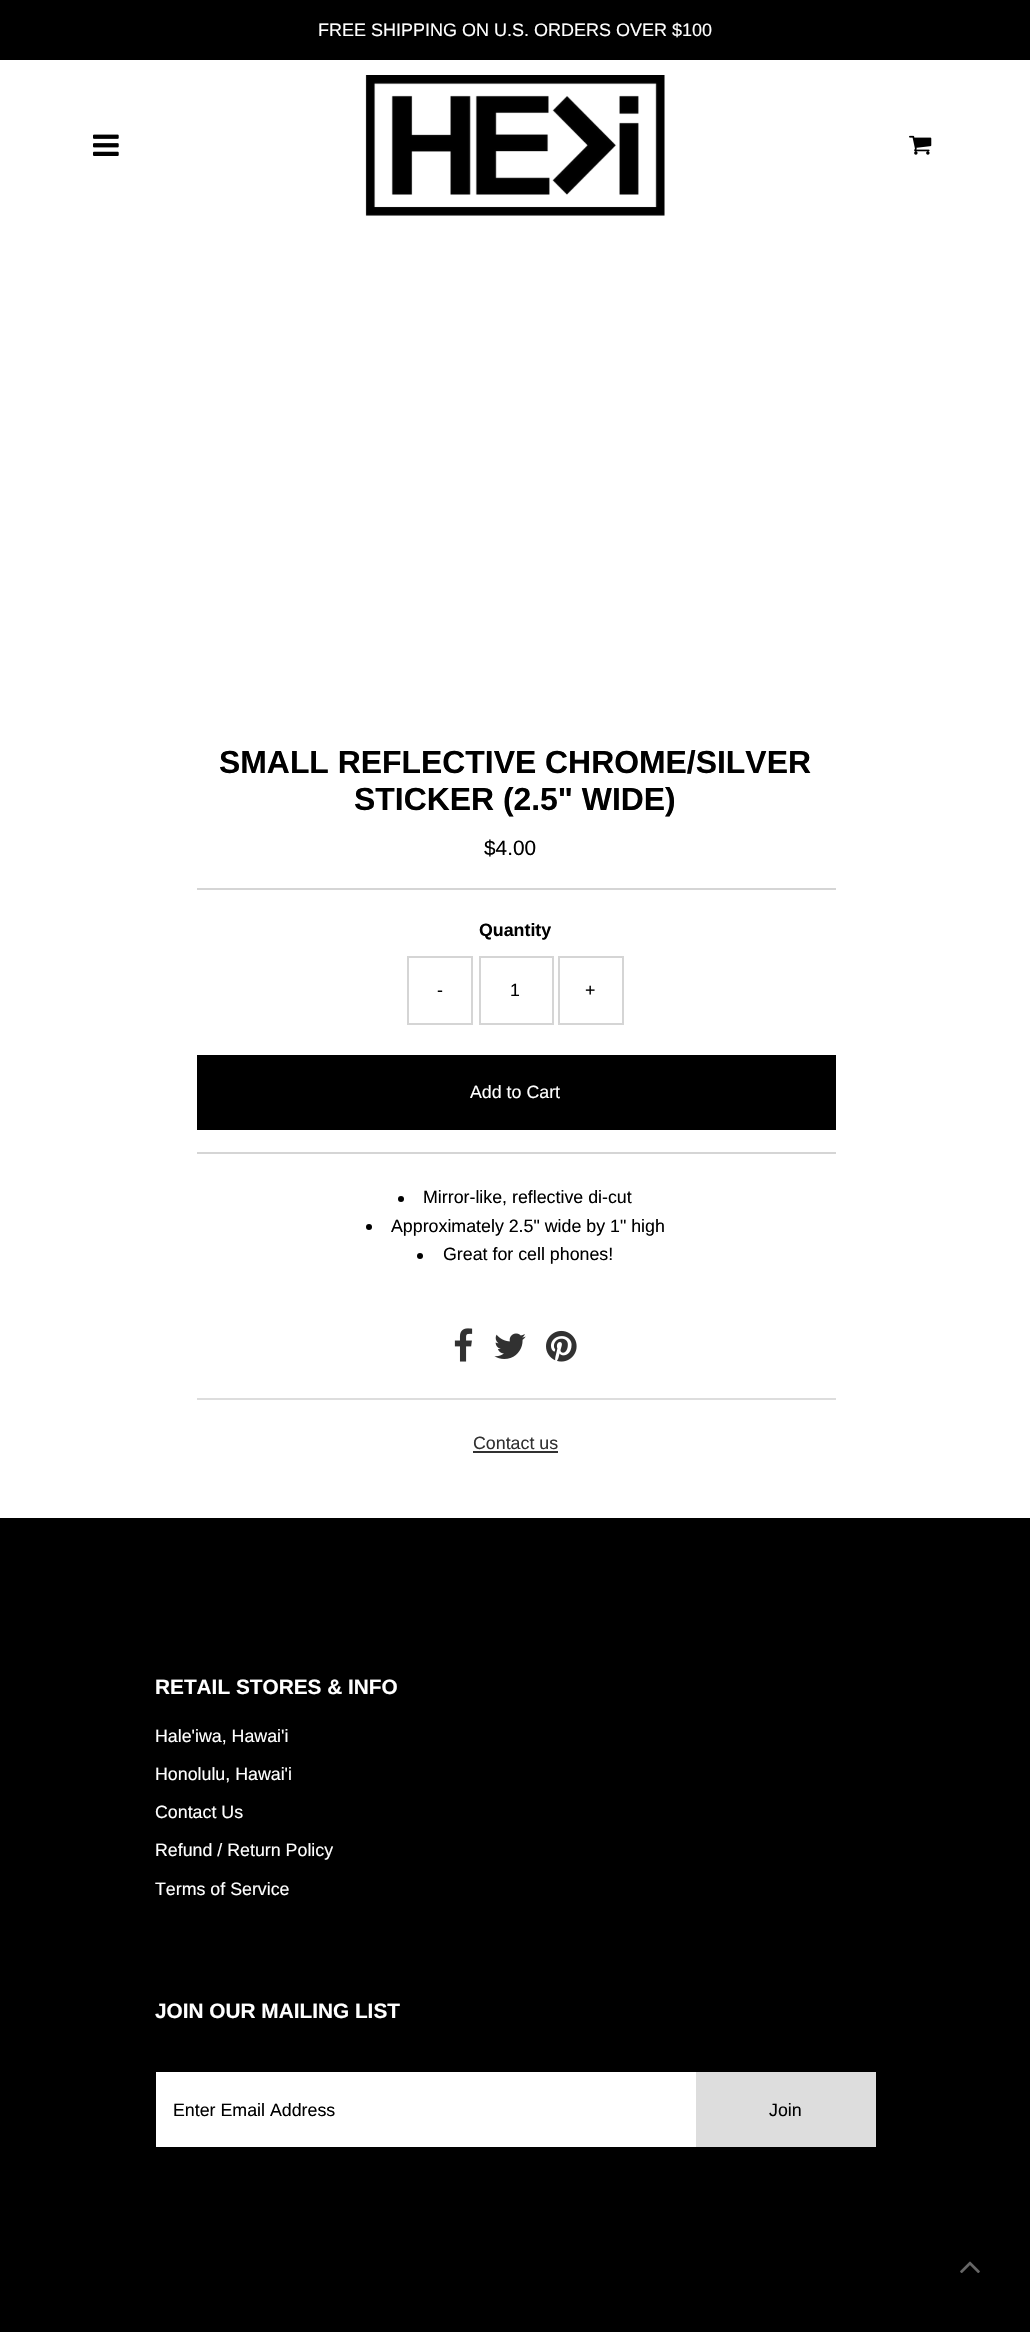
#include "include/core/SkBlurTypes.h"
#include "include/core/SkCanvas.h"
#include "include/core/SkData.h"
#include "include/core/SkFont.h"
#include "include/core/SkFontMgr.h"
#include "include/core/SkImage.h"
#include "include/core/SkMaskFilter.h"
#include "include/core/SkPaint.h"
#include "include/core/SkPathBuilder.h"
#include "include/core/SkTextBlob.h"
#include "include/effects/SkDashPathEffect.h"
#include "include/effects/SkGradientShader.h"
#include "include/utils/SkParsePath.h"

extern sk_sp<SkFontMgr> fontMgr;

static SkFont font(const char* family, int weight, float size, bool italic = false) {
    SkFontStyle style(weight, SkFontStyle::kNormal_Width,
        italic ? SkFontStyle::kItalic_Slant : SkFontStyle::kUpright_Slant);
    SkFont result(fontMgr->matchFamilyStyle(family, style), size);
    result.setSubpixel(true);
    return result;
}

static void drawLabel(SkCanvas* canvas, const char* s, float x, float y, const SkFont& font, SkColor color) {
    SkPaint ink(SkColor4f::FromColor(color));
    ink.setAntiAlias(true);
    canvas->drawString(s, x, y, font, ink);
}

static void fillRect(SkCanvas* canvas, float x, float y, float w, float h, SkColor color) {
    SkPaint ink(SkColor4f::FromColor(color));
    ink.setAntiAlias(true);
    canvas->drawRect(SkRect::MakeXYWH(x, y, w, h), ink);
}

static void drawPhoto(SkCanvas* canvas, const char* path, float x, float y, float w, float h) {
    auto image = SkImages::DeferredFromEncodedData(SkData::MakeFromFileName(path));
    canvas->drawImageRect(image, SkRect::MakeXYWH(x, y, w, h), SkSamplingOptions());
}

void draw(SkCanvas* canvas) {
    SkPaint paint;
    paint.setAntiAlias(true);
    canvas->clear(0xFFFFFFFF);
    fillRect(canvas, 0, 0, 1030, 60, 0xFF000000);
    SkFont font1 = font("Liberation Sans", 400, 18);
    drawLabel(canvas, "FREE SHIPPING ON U.S. ORDERS OVER $100", 318, 36, font1, 0xFFFFFFFF);
    drawPhoto(canvas, "assets/img1.png", 93, 134, 26, 22);
    drawPhoto(canvas, "assets/img2.png", 365, 75, 300, 141);
    drawPhoto(canvas, "assets/img3.png", 909, 135, 23, 20);
    SkFont font2 = font("Liberation Sans", 700, 31.9f);
    drawLabel(canvas, "SMALL REFLECTIVE CHROME/SILVER", 219, 773, font2, 0xFF000000);
    drawLabel(canvas, "STICKER (2.5\" WIDE)", 354, 810, font2, 0xFF000000);
    fillRect(canvas, 197, 1152, 639, 2, 0xFFD5D5D5);
    fillRect(canvas, 197, 888, 639, 2, 0xFFD5D5D5);
    SkFont font3 = font("Liberation Sans", 400, 20.8f);
    drawLabel(canvas, "$4.00", 484, 855, font3, 0xFF000000);
    SkFont font4 = font("Liberation Sans", 700, 17.8f);
    drawLabel(canvas, "Quantity", 479, 936, font4, 0xFF000000);
    paint.setStroke(true);
    paint.setStrokeWidth(2);
    paint.setColor(0xFFD5D5D5);
    canvas->drawRect(SkRect::MakeXYWH(408, 957, 64, 67), paint);
    SkFont font5 = font("Liberation Sans", 400, 17.8f);
    drawLabel(canvas, "-", 437, 996, font5, 0xFF000000);
    canvas->drawRect(SkRect::MakeXYWH(480, 957, 73, 67), paint);
    drawLabel(canvas, "1", 510, 996, font5, 0xFF000000);
    canvas->drawRect(SkRect::MakeXYWH(559, 957, 64, 67), paint);
    drawLabel(canvas, "+", 585, 996, font5, 0xFF000000);
    fillRect(canvas, 197, 1055, 639, 75, 0xFF000000);
    drawLabel(canvas, "Add to Cart", 470, 1098, font5, 0xFFFFFFFF);
    paint.setStroke(false);
    paint.setColor(0xFF000000);
    canvas->drawCircle(401, 1199, 3, paint);
    drawLabel(canvas, "Mirror-like, reflective di-cut", 423, 1203, font5, 0xFF000000);
    canvas->drawCircle(369, 1227, 3, paint);
    drawLabel(canvas, "Approximately 2.5\" wide by 1\" high", 391, 1232, font5, 0xFF000000);
    canvas->drawCircle(420, 1256, 3, paint);
    drawLabel(canvas, "Great for cell phones!", 443, 1260, font5, 0xFF000000);
    fillRect(canvas, 197, 1398, 639, 2, 0xFFDDDDDD);
    drawPhoto(canvas, "assets/img4.png", 454, 1328, 19, 34);
    drawPhoto(canvas, "assets/img5.png", 494, 1333, 32, 26);
    drawPhoto(canvas, "assets/img6.png", 546, 1330, 31, 32);
    drawLabel(canvas, "Contact us", 473, 1449, font5, 0xFF313131);
    fillRect(canvas, 473, 1451, 85, 2, 0xFF313131);
    fillRect(canvas, 0, 1518, 1030, 814, 0xFF000000);
    SkFont font6 = font("Liberation Sans", 700, 20.8f);
    drawLabel(canvas, "RETAIL STORES & INFO", 155, 1694, font6, 0xFFFFFFFF);
    drawLabel(canvas, "Hale'iwa, Hawai'i", 155, 1742, font5, 0xFFFFFFFF);
    drawLabel(canvas, "Honolulu, Hawai'i", 155, 1780, font5, 0xFFFFFFFF);
    drawLabel(canvas, "Contact Us", 155, 1818, font5, 0xFFFFFFFF);
    drawLabel(canvas, "Refund / Return Policy", 155, 1856, font5, 0xFFFFFFFF);
    drawLabel(canvas, "Terms of Service", 155, 1895, font5, 0xFFFFFFFF);
    drawLabel(canvas, "JOIN OUR MAILING LIST", 155, 2018, font6, 0xFFFFFFFF);
    fillRect(canvas, 156, 2072, 540, 75, 0xFFFFFFFF);
    drawLabel(canvas, "Enter Email Address", 173, 2116, font5, 0xFF000000);
    fillRect(canvas, 696, 2072, 180, 75, 0xFFDDDDDD);
    drawLabel(canvas, "Join", 769, 2116, font5, 0xFF000000);
    drawPhoto(canvas, "assets/img7.png", 960, 2261, 20, 12);
}
